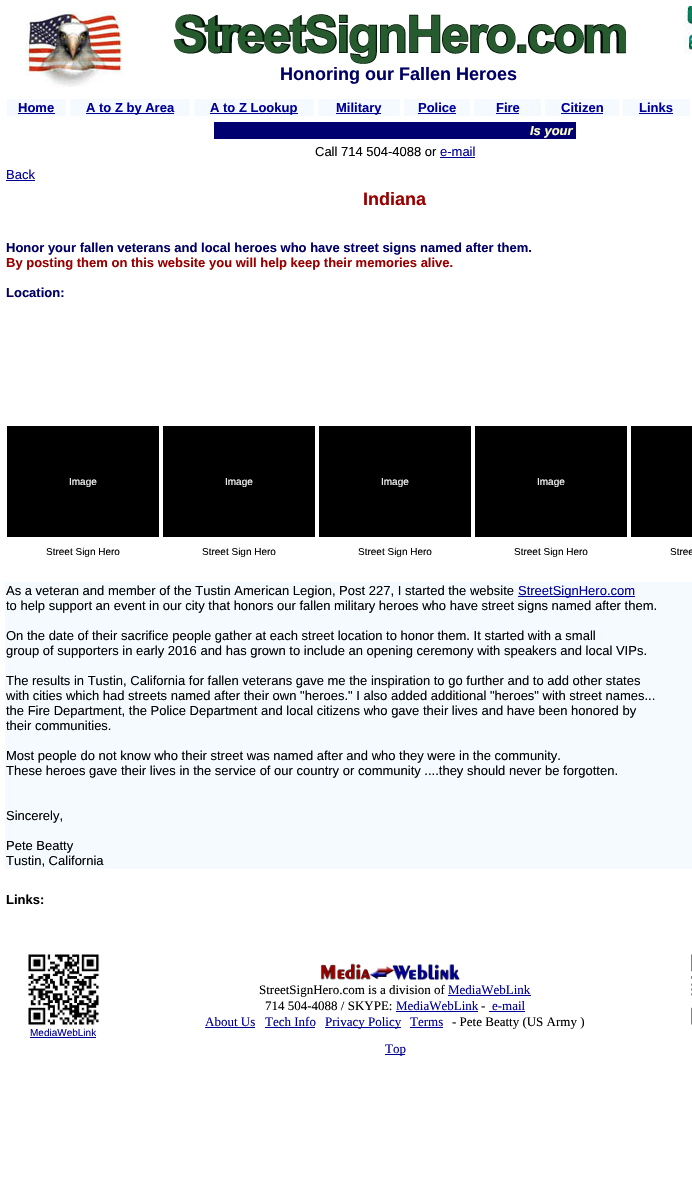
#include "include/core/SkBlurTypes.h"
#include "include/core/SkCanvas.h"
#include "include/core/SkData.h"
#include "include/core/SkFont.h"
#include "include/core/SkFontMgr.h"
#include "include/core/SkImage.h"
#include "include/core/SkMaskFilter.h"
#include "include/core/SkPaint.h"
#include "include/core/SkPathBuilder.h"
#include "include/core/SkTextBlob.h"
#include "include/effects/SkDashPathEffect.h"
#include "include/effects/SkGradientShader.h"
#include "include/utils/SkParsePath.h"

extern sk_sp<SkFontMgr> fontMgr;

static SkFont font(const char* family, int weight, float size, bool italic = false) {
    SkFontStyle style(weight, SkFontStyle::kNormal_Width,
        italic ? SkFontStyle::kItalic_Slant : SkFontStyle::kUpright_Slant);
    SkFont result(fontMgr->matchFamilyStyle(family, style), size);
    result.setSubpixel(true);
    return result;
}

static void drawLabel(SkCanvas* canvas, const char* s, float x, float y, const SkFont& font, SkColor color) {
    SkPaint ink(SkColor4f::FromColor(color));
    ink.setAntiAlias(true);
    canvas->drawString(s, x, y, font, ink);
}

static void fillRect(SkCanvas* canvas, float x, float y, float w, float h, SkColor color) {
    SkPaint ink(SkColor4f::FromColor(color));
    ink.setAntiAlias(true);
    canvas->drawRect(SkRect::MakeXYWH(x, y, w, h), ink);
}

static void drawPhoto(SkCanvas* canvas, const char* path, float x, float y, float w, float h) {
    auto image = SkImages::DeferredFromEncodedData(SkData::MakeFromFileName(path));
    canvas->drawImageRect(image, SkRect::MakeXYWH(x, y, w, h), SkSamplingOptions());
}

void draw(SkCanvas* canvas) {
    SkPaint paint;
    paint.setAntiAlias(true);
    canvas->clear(0xFFFFFFFF);
    drawPhoto(canvas, "assets/img1.png", 25, 11, 96, 76);
    drawPhoto(canvas, "assets/img2.png", 173, 14, 454, 50);
    SkFont font1 = font("Liberation Sans", 700, 18);
    drawLabel(canvas, "Honoring our Fallen Heroes", 280, 80, font1, 0xFF000066);
    drawPhoto(canvas, "assets/img3.png", 684, 6, 8, 48);
    fillRect(canvas, 7, 99, 59, 17, 0xFFF4FAFF);
    SkFont font2 = font("Liberation Sans", 700, 13);
    drawLabel(canvas, "Home", 18, 112, font2, 0xFF000099);
    fillRect(canvas, 18, 113, 37, 1, 0xFF000099);
    fillRect(canvas, 70, 99, 120, 17, 0xFFF4FAFF);
    fillRect(canvas, 86, 113, 88, 1, 0xFF000099);
    drawLabel(canvas, "A to Z by Area", 86, 112, font2, 0xFF000099);
    fillRect(canvas, 194, 99, 120, 17, 0xFFF4FAFF);
    fillRect(canvas, 210, 113, 88, 1, 0xFF000099);
    drawLabel(canvas, "A to Z Lookup", 210, 112, font2, 0xFF000099);
    fillRect(canvas, 318, 99, 82, 17, 0xFFF4FAFF);
    fillRect(canvas, 336, 113, 45, 1, 0xFF000099);
    drawLabel(canvas, "Military", 336, 112, font2, 0xFF000099);
    fillRect(canvas, 404, 99, 66, 17, 0xFFF4FAFF);
    drawLabel(canvas, "Police", 418, 112, font2, 0xFF000099);
    fillRect(canvas, 418, 113, 38, 1, 0xFF000099);
    fillRect(canvas, 474, 99, 67, 17, 0xFFF4FAFF);
    drawLabel(canvas, "Fire", 496, 112, font2, 0xFF000099);
    fillRect(canvas, 496, 113, 23, 1, 0xFF000099);
    fillRect(canvas, 545, 99, 74, 17, 0xFFF4FAFF);
    drawLabel(canvas, "Citizen", 561, 112, font2, 0xFF000099);
    fillRect(canvas, 561, 113, 42, 1, 0xFF000099);
    fillRect(canvas, 623, 99, 67, 17, 0xFFF4FAFF);
    drawLabel(canvas, "Links", 639, 112, font2, 0xFF000099);
    fillRect(canvas, 639, 113, 34, 1, 0xFF000099);
    fillRect(canvas, 214, 122, 362, 17, 0xFF000071);
    SkFont font3 = font("Liberation Sans", 700, 13, true);
    drawLabel(canvas, "Is your", 530, 135, font3, 0xFFFFFFCC);
    SkFont font4 = font("Liberation Sans", 400, 13);
    drawLabel(canvas, "Call 714 504-4088 or", 315, 156, font4, 0xFF000000);
    drawLabel(canvas, "e-mail", 440, 156, font4, 0xFF000099);
    fillRect(canvas, 440, 157, 35, 1, 0xFF000099);
    drawLabel(canvas, "Back", 6, 179, font4, 0xFF000099);
    fillRect(canvas, 6, 180, 29, 1, 0xFF000099);
    drawLabel(canvas, "Indiana", 363, 205, font1, 0xFF990000);
    drawLabel(canvas, "Honor your fallen veterans and local heroes who have street signs named after them.", 6, 252, font2, 0xFF000066);
    drawLabel(canvas, "By posting them on this website you will help keep their memories alive.", 6, 267, font2, 0xFF990000);
    drawLabel(canvas, "Location:", 6, 297, font2, 0xFF000066);
    fillRect(canvas, 7, 426, 152, 111, 0xFF000000);
    SkFont font5 = font("Liberation Sans", 400, 10);
    drawLabel(canvas, "Image", 69, 485, font5, 0xFFFFFFFF);
    fillRect(canvas, 163, 426, 152, 111, 0xFF000000);
    drawLabel(canvas, "Image", 225, 485, font5, 0xFFFFFFFF);
    fillRect(canvas, 319, 426, 152, 111, 0xFF000000);
    drawLabel(canvas, "Image", 381, 485, font5, 0xFFFFFFFF);
    fillRect(canvas, 475, 426, 152, 111, 0xFF000000);
    drawLabel(canvas, "Image", 537, 485, font5, 0xFFFFFFFF);
    fillRect(canvas, 631, 426, 61, 111, 0xFF000000);
    drawLabel(canvas, "Street Sign Hero", 46, 555, font5, 0xFF000000);
    drawLabel(canvas, "Street Sign Hero", 202, 555, font5, 0xFF000000);
    drawLabel(canvas, "Street Sign Hero", 358, 555, font5, 0xFF000000);
    drawLabel(canvas, "Street Sign Hero", 514, 555, font5, 0xFF000000);
    drawLabel(canvas, "Stree", 670, 555, font5, 0xFF000000);
    fillRect(canvas, 5, 582, 687, 287, 0xFFF4FAFF);
    drawLabel(canvas, "As a veteran and member of the Tustin American Legion, Post 227, I started the website", 6, 595, font4, 0xFF000000);
    fillRect(canvas, 518, 596, 117, 1, 0xFF000099);
    drawLabel(canvas, "StreetSignHero.com", 518, 595, font4, 0xFF000099);
    drawLabel(canvas, "to help support an event in our city that honors our fallen military heroes who have street signs named after them.", 6, 610, font4, 0xFF000000);
    drawLabel(canvas, "On the date of their sacrifice people gather at each street location to honor them. It started with a small", 6, 640, font4, 0xFF000000);
    drawLabel(canvas, "group of supporters in early 2016 and has grown to include an opening ceremony with speakers and local VIPs.", 6, 655, font4, 0xFF000000);
    drawLabel(canvas, "The results in Tustin, California for fallen veterans gave me the inspiration to go further and to add other states", 6, 685, font4, 0xFF000000);
    drawLabel(canvas, "with cities which had streets named after their own \"heroes.\" I also added additional \"heroes\" with street names...", 6, 700, font4, 0xFF000000);
    drawLabel(canvas, "the Fire Department, the Police Department and local citizens who gave their lives and have been honored by", 6, 715, font4, 0xFF000000);
    drawLabel(canvas, "their communities.", 6, 730, font4, 0xFF000000);
    drawLabel(canvas, "Most people do not know who their street was named after and who they were in the community.", 6, 760, font4, 0xFF000000);
    drawLabel(canvas, "These heroes gave their lives in the service of our country or community ....they should never be forgotten.", 6, 775, font4, 0xFF000000);
    drawLabel(canvas, "Sincerely,", 6, 820, font4, 0xFF000000);
    drawLabel(canvas, "Pete Beatty", 6, 850, font4, 0xFF000000);
    drawLabel(canvas, "Tustin, California", 6, 865, font4, 0xFF000000);
    drawLabel(canvas, "Links:", 6, 904, font2, 0xFF000000);
    drawPhoto(canvas, "assets/img4.png", 320, 963, 140, 18);
    SkFont font6 = font("Liberation Serif", 400, 13);
    drawLabel(canvas, "StreetSignHero.com is a division of", 259, 994, font6, 0xFF000000);
    drawLabel(canvas, "MediaWebLink", 448, 994, font6, 0xFF000099);
    fillRect(canvas, 448, 995, 83, 1, 0xFF000099);
    drawLabel(canvas, "714 504-4088 / SKYPE:", 265, 1010, font6, 0xFF000000);
    drawLabel(canvas, "MediaWebLink", 396, 1010, font6, 0xFF000099);
    fillRect(canvas, 396, 1011, 82, 1, 0xFF000099);
    drawLabel(canvas, "-", 481, 1010, font6, 0xFF000000);
    drawLabel(canvas, "e-mail", 492, 1010, font6, 0xFF000099);
    fillRect(canvas, 489, 1011, 36, 1, 0xFF000099);
    drawLabel(canvas, "About Us", 205, 1026, font6, 0xFF000099);
    fillRect(canvas, 205, 1027, 50, 1, 0xFF000099);
    drawLabel(canvas, "Tech Info", 265, 1026, font6, 0xFF000099);
    fillRect(canvas, 265, 1027, 50, 1, 0xFF000099);
    fillRect(canvas, 325, 1027, 76, 1, 0xFF000099);
    drawLabel(canvas, "Privacy Policy", 325, 1026, font6, 0xFF000099);
    drawLabel(canvas, "Terms", 410, 1026, font6, 0xFF000099);
    fillRect(canvas, 410, 1027, 33, 1, 0xFF000099);
    drawLabel(canvas, "- Pete Beatty (US Army )", 452, 1026, font6, 0xFF000000);
    drawPhoto(canvas, "assets/img5.png", 691, 954, 1, 71);
    drawPhoto(canvas, "assets/img6.png", 28, 954, 72, 72);
    drawLabel(canvas, "MediaWebLink", 30, 1036, font5, 0xFF000099);
    fillRect(canvas, 30, 1037, 66, 1, 0xFF000099);
    fillRect(canvas, 385, 1054, 20, 1, 0xFF000099);
    drawLabel(canvas, "Top", 385, 1053, font6, 0xFF000099);
}
